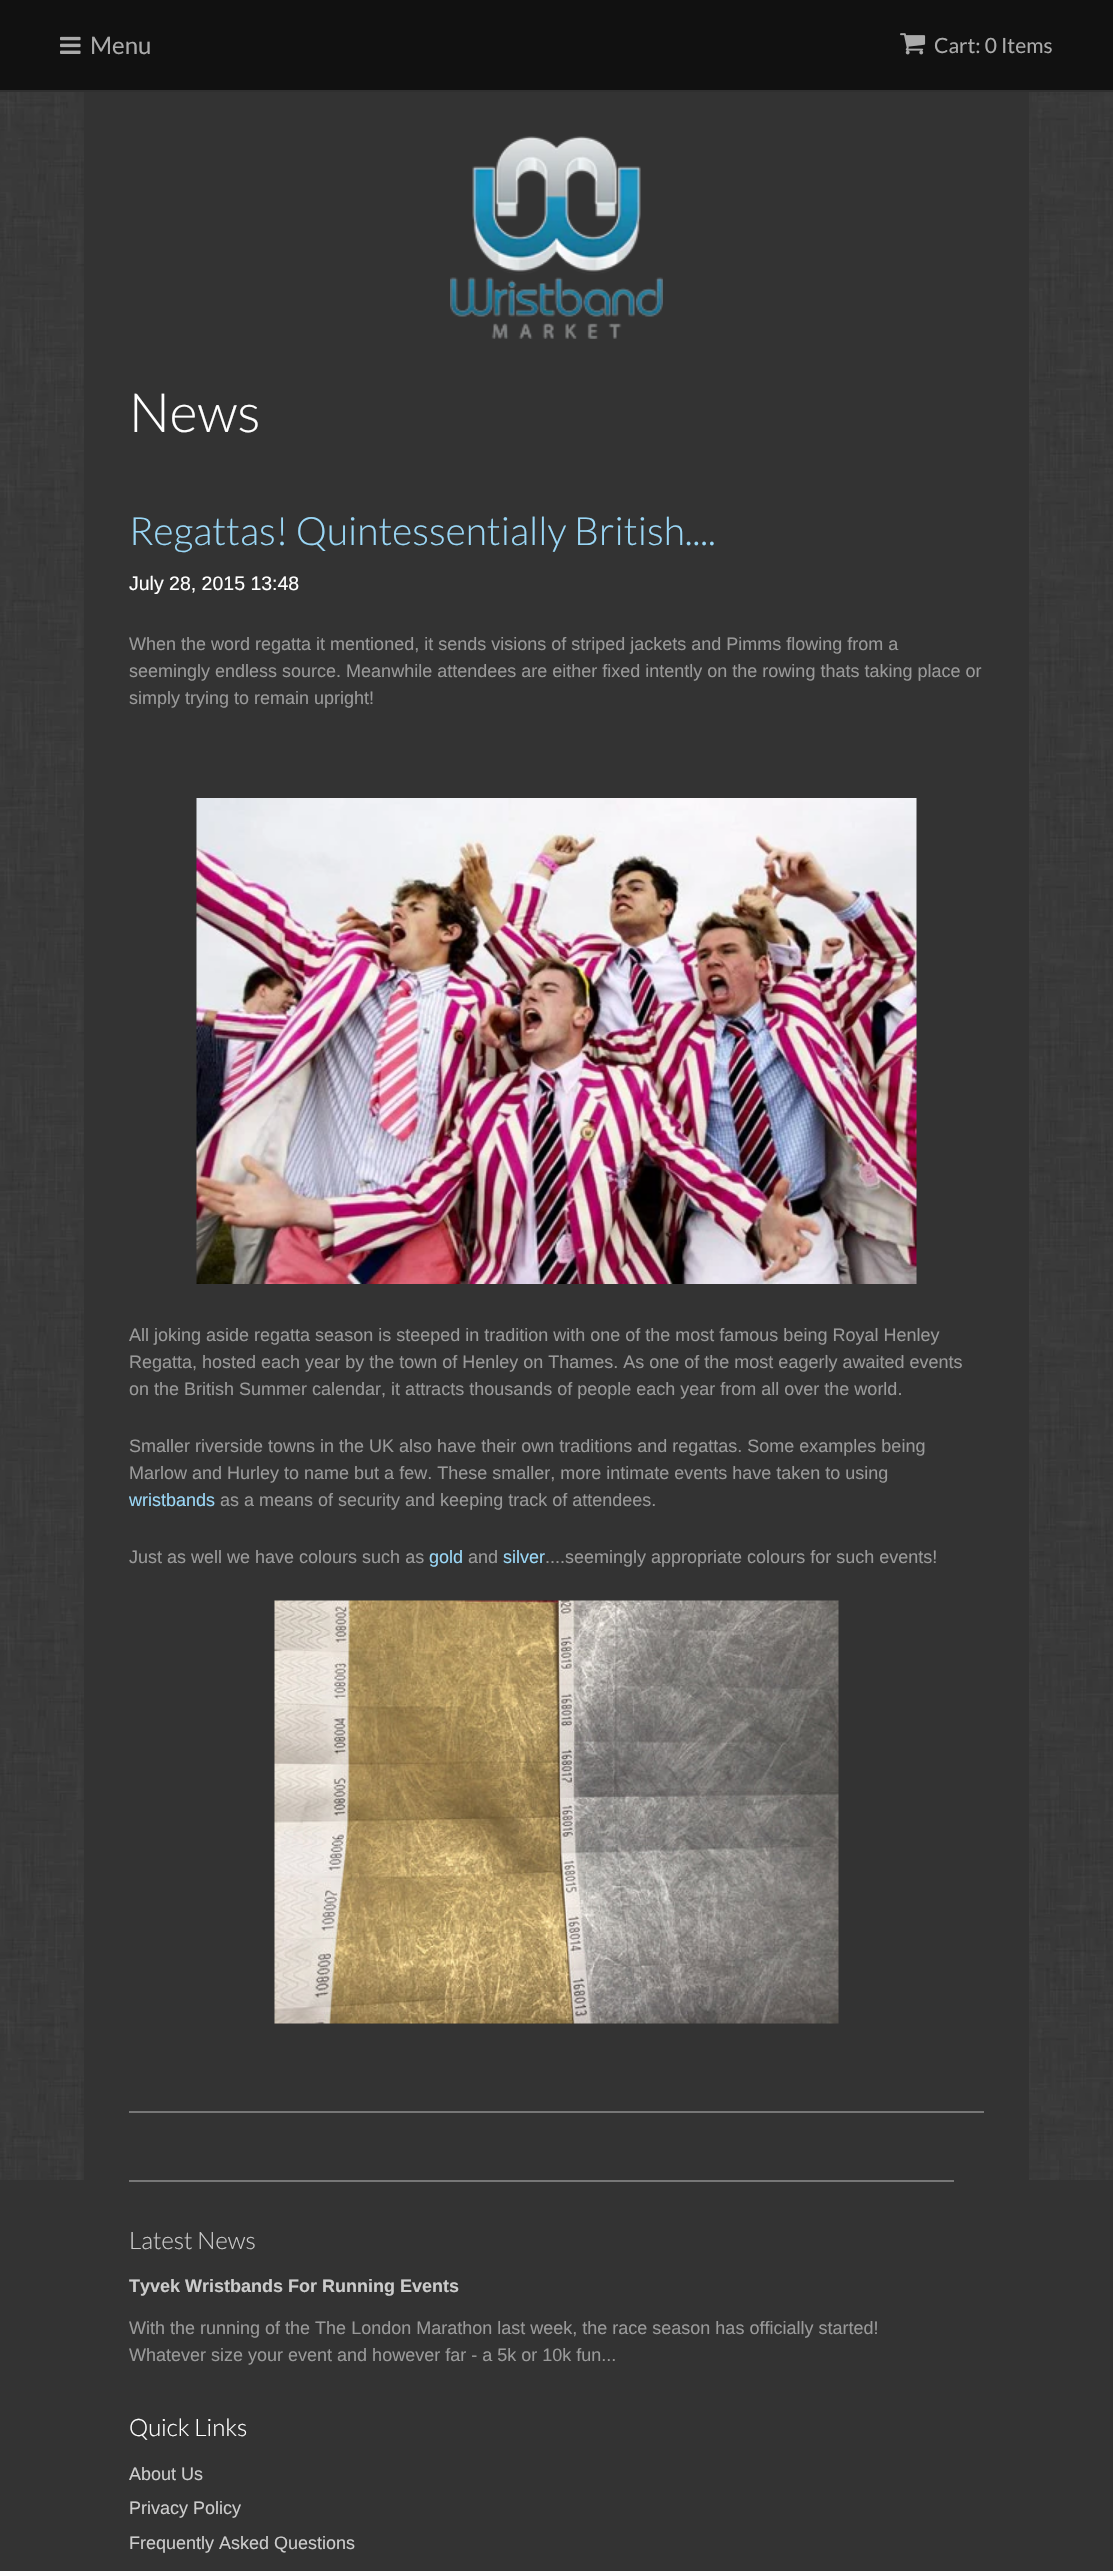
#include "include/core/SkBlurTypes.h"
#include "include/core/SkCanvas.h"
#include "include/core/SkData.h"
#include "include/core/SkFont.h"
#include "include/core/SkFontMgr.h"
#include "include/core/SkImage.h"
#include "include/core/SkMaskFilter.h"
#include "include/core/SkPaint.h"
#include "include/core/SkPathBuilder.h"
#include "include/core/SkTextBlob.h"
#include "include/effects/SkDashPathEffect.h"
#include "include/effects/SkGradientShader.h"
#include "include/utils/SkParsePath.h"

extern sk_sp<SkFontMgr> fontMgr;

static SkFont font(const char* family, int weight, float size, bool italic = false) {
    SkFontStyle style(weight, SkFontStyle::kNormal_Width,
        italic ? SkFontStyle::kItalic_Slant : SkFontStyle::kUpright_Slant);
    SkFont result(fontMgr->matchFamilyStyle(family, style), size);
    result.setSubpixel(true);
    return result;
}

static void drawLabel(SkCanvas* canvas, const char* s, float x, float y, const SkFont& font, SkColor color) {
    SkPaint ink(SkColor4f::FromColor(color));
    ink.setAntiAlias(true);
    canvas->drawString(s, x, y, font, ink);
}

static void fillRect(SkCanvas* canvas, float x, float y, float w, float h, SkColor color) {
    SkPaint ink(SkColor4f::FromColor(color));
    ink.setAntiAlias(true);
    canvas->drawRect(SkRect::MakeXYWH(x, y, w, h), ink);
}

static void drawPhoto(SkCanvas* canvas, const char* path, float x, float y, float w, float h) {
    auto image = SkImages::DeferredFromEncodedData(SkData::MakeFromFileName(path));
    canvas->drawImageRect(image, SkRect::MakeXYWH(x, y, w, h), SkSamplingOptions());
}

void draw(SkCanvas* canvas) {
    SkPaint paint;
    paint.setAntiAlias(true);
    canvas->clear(0xFFFFFFFF);
    drawPhoto(canvas, "assets/img1.png", 0, 92, 1113, 2088);
    fillRect(canvas, 0, 0, 1113, 90, 0xFF111111);
    fillRect(canvas, 0, 90, 1113, 2, 0xFF2F2F2F);
    drawPhoto(canvas, "assets/img2.png", 60, 36, 21, 18);
    SkFont font1 = font("Lato", 400, 24);
    drawLabel(canvas, "Menu", 90, 54, font1, 0xFFAAAAAA);
    drawPhoto(canvas, "assets/img3.png", 900, 33, 26, 22);
    SkFont font2 = font("Lato", 400, 21);
    drawLabel(canvas, "Cart: 0 Items", 934, 53, font2, 0xFFAAAAAA);
    fillRect(canvas, 84, 92, 945, 2088, 0xFF333333);
    drawPhoto(canvas, "assets/img4.png", 450, 136, 213, 203);
    SkFont font3 = font("Lato", 300, 54);
    drawLabel(canvas, "News", 129, 432, font3, 0xFFFFFFFF);
    SkFont font4 = font("Lato", 300, 39);
    drawLabel(canvas, "Regattas! Quintessentially British....", 129, 545, font4, 0xFF9AD7F6);
    SkFont font5 = font("Liberation Sans", 400, 19.5f);
    drawLabel(canvas, "July 28, 2015 13:48", 129, 590, font5, 0xFFFFFFFF);
    SkFont font6 = font("Liberation Sans", 400, 18);
    drawLabel(canvas, "When the word regatta it mentioned, it sends visions of striped jackets and Pimms flowing from a", 129, 650, font6, 0xFF999999);
    drawLabel(canvas, "seemingly endless source. Meanwhile attendees are either fixed intently on the rowing thats taking place or", 129, 677, font6, 0xFF999999);
    drawLabel(canvas, "simply trying to remain upright!", 129, 704, font6, 0xFF999999);
    drawPhoto(canvas, "assets/img5.png", 196, 798, 721, 486);
    drawLabel(canvas, "All joking aside regatta season is steeped in tradition with one of the most famous being Royal Henley", 129, 1341, font6, 0xFF999999);
    drawLabel(canvas, "Regatta, hosted each year by the town of Henley on Thames. As one of the most eagerly awaited events", 129, 1368, font6, 0xFF999999);
    drawLabel(canvas, "on the British Summer calendar, it attracts thousands of people each year from all over the world.", 129, 1395, font6, 0xFF999999);
    drawLabel(canvas, "Smaller riverside towns in the UK also have their own traditions and regattas. Some examples being", 129, 1452, font6, 0xFF999999);
    drawLabel(canvas, "Marlow and Hurley to name but a few. These smaller, more intimate events have taken to using", 129, 1479, font6, 0xFF999999);
    drawLabel(canvas, "wristbands", 129, 1506, font6, 0xFF9AD7F6);
    drawLabel(canvas, "as a means of security and keeping track of attendees.", 220, 1506, font6, 0xFF999999);
    drawLabel(canvas, "Just as well we have colours such as", 129, 1563, font6, 0xFF999999);
    drawLabel(canvas, "gold", 429, 1563, font6, 0xFF9AD7F6);
    drawLabel(canvas, "and", 468, 1563, font6, 0xFF999999);
    drawLabel(canvas, "silver", 503, 1563, font6, 0xFF9AD7F6);
    drawLabel(canvas, "....seemingly appropriate colours for such events!", 545, 1563, font6, 0xFF999999);
    drawPhoto(canvas, "assets/img6.png", 274, 1600, 565, 424);
    fillRect(canvas, 129, 2111, 855, 2, 0xFF777777);
    fillRect(canvas, 0, 2180, 1113, 391, 0xFF333333);
    fillRect(canvas, 129, 2180, 825, 2, 0xFF777777);
    SkFont font7 = font("Lato", 300, 24);
    drawLabel(canvas, "Latest News", 129, 2249, font7, 0xFFCCCCCC);
    SkFont font8 = font("Liberation Sans", 700, 18);
    drawLabel(canvas, "Tyvek Wristbands For Running Events", 129, 2292, font8, 0xFFCCCCCC);
    drawLabel(canvas, "With the running of the The London Marathon last week, the race season has officially started!", 129, 2334, font6, 0xFF999999);
    drawLabel(canvas, "Whatever size your event and however far - a 5k or 10k fun...", 129, 2361, font6, 0xFF999999);
    drawLabel(canvas, "Quick Links", 129, 2436, font7, 0xFFFFFFFF);
    drawLabel(canvas, "About Us", 129, 2480, font6, 0xFFCCCCCC);
    drawLabel(canvas, "Privacy Policy", 129, 2514, font6, 0xFFCCCCCC);
    drawLabel(canvas, "Frequently Asked Questions", 129, 2549, font6, 0xFFCCCCCC);
}
